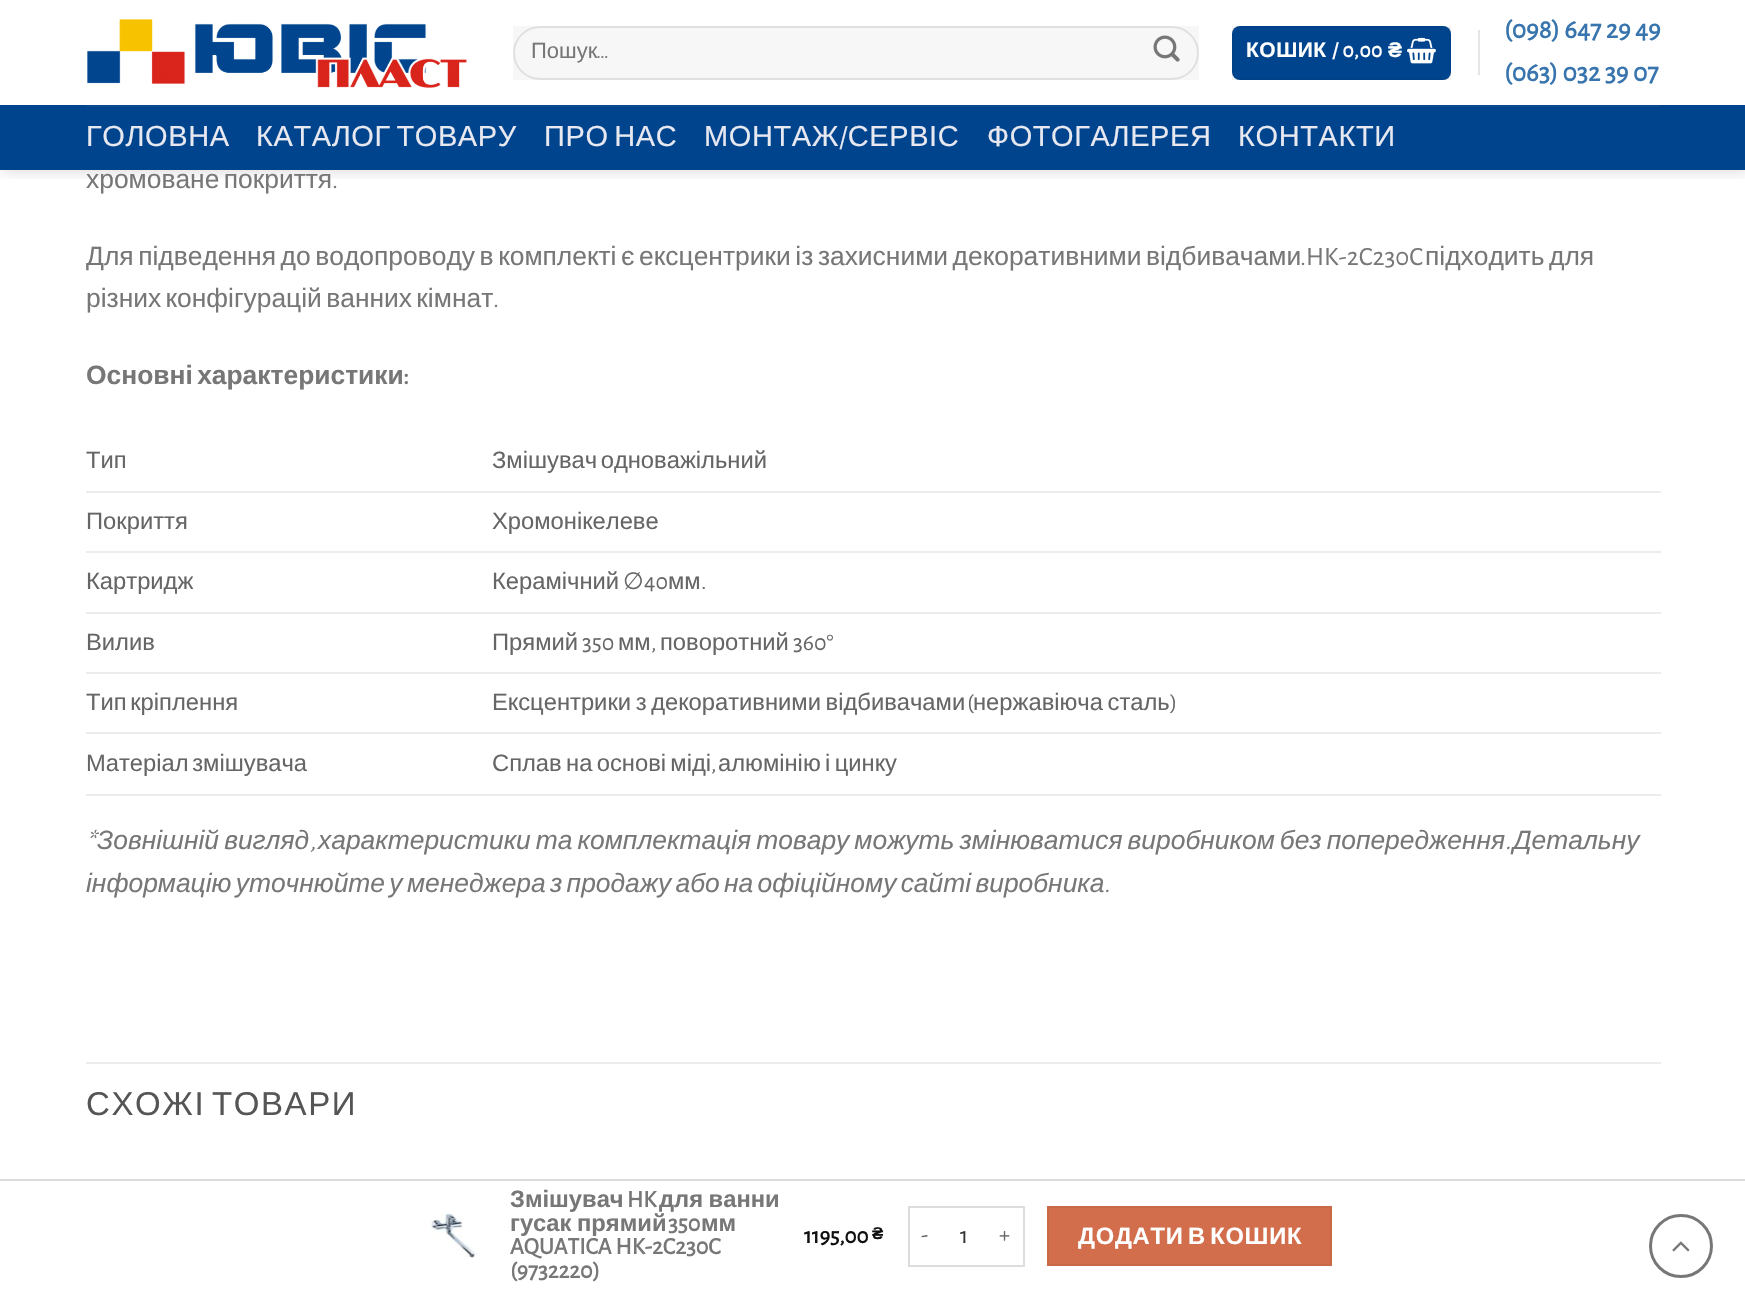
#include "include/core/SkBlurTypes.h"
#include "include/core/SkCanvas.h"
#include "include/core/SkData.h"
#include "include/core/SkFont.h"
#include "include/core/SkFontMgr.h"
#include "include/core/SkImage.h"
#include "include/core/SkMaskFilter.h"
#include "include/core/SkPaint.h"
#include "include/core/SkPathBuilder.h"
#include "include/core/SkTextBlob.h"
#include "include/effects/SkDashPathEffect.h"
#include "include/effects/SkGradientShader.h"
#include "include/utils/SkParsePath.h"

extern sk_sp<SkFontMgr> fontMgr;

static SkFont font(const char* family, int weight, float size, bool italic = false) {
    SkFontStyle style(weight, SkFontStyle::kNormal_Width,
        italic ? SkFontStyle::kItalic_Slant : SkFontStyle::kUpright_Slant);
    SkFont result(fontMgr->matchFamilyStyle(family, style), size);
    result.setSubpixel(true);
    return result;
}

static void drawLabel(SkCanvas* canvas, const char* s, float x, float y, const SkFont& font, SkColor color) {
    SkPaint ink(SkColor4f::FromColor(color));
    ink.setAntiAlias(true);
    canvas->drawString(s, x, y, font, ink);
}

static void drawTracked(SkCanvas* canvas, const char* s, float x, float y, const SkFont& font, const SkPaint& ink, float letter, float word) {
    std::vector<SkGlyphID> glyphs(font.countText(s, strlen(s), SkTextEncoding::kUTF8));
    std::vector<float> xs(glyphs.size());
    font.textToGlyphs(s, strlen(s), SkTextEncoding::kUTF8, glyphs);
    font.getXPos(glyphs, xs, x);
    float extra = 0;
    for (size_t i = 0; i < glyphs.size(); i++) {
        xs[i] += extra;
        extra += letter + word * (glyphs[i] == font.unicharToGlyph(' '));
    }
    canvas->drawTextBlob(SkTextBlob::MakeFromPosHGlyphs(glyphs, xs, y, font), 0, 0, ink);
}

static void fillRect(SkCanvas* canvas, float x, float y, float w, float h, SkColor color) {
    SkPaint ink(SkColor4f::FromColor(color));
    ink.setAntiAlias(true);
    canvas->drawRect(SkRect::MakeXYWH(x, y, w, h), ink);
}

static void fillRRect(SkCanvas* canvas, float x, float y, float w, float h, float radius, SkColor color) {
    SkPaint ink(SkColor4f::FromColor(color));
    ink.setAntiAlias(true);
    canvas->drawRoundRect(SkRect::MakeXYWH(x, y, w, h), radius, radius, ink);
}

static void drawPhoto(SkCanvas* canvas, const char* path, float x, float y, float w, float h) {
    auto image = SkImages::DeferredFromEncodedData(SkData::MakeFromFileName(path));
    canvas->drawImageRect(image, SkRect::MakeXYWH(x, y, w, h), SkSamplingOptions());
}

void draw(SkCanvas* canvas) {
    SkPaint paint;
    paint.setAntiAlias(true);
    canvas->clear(0xFFFFFFFF);
    canvas->save();
    canvas->clipRect(SkRect::MakeXYWH(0, 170, 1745, 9));
    paint.setColor(0x26000000);
    paint.setMaskFilter(SkMaskFilter::MakeBlur(kNormal_SkBlurStyle, 7.5f));
    canvas->drawRect(SkRect::MakeXYWH(2, 2, 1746, 169), paint);
    paint.setMaskFilter(nullptr);
    canvas->restore();
    drawPhoto(canvas, "assets/img1.png", 87, 19, 380, 69);
    fillRect(canvas, 513, 26, 686, 54, 0x08000000);
    paint.setStroke(true);
    paint.setStrokeWidth(2);
    paint.setColor(0x17000000);
    canvas->drawRoundRect(SkRect::MakeXYWH(514, 27, 684, 52), 26, 26, paint);
    SkFont font1 = font("Liberation Sans", 400, 22);
    drawLabel(canvas, "Пошук", 531, 58, font1, 0xFF777777);
    SkFont font2 = font("Alegreya Sans", 400, 22);
    drawLabel(canvas, "…", 596, 58, font2, 0xFF777777);
    drawPhoto(canvas, "assets/img2.png", 1153, 35, 27, 27);
    fillRRect(canvas, 1232, 26, 219, 54, 8, 0xFF00448E);
    paint.setColor(0x0D000000);
    canvas->drawRect(SkRect::MakeXYWH(1233, 27, 217, 52), paint);
    SkFont font3 = font("Liberation Sans", 700, 21);
    paint.setStroke(false);
    paint.setColor(0xFFFFFFFF);
    drawTracked(canvas, "КОШИК", 1246, 57, font3, paint, 0.5f, 0);
    SkFont font4 = font("Alegreya Sans", 700, 21);
    drawTracked(canvas, "/ 0,00", 1332, 57, font4, paint, 0.5f, 0);
    drawTracked(canvas, "₴", 1388, 57, font3, paint, 0.5f, 0);
    drawPhoto(canvas, "assets/img3.png", 1407, 37, 29, 27);
    fillRect(canvas, 1478, 30, 2, 45, 0x1A000000);
    SkFont font5 = font("Alegreya Sans", 700, 27);
    drawLabel(canvas, "(098) 647 29 49", 1504, 38, font5, 0xFF3874AD);
    drawLabel(canvas, "(063) 032 39 07", 1504, 81, font5, 0xFF3874AD);
    fillRect(canvas, 0, 105, 1745, 65, 0xFF00448E);
    fillRect(canvas, 86, 105, 1575, 2, 0xFF0C498C);
    SkFont font6 = font("Liberation Sans", 400, 29);
    paint.setColor(0xFFE8E8F1);
    drawTracked(canvas, "ГОЛОВНА", 86, 146, font6, paint, 0.6f, 0);
    drawTracked(canvas, "КАТАЛОГ ТОВАРУ", 256, 146, font6, paint, 0.6f, -3);
    drawTracked(canvas, "ПРО НАС", 544, 146, font6, paint, 0.6f, -3);
    drawTracked(canvas, "МОНТАЖ СЕРВІС", 704, 146, font6, paint, 0.6f, 0);
    SkFont font7 = font("Alegreya Sans", 400, 29);
    drawTracked(canvas, "/", 839, 146, font7, paint, 0.6f, 0);
    drawTracked(canvas, "ФОТОГАЛЕРЕЯ", 987, 146, font6, paint, 0.6f, 0);
    drawTracked(canvas, "КОНТАКТИ", 1238, 146, font6, paint, 0.6f, 0);
    SkFont font8 = font("Liberation Sans", 400, 26.4f);
    paint.setColor(0xFF777777);
    drawTracked(canvas, "хромоване покриття", 86, 188, font8, paint, 0, -3);
    SkFont font9 = font("Alegreya Sans", 400, 26.4f);
    drawLabel(canvas, ".", 332, 188, font9, 0xFF777777);
    drawTracked(canvas, "Для підведення до водопроводу в комплекті є ексцентрики із захисними декоративними відбивачами", 86, 265, font8, paint, 0, -2.75f);
    drawLabel(canvas, ".HK-2C230C", 1300, 265, font9, 0xFF777777);
    drawTracked(canvas, "підходить для", 1425, 265, font8, paint, 0, -2.75f);
    drawTracked(canvas, "різних конфігурацій ванних кімнат", 86, 307, font8, paint, 0, -3);
    drawLabel(canvas, ".", 493, 307, font9, 0xFF777777);
    SkFont font10 = font("Liberation Sans", 700, 26.4f);
    drawTracked(canvas, "Основні характеристики", 86, 384, font10, paint, 0, -3);
    SkFont font11 = font("Alegreya Sans", 700, 26.4f);
    drawLabel(canvas, ":", 403, 384, font11, 0xFF777777);
    fillRect(canvas, 86, 491, 1575, 2, 0xFFECECEC);
    SkFont font12 = font("Liberation Sans", 400, 23.75f);
    drawLabel(canvas, "Тип", 86, 468, font12, 0xFF666666);
    paint.setColor(0xFF666666);
    drawTracked(canvas, "Змішувач одноважільний", 492, 468, font12, paint, 0, -3);
    fillRect(canvas, 86, 551, 1575, 2, 0xFFECECEC);
    drawLabel(canvas, "Покриття", 86, 529, font12, 0xFF666666);
    drawLabel(canvas, "Хромонікелеве", 492, 529, font12, 0xFF666666);
    fillRect(canvas, 86, 612, 1575, 2, 0xFFECECEC);
    drawLabel(canvas, "Картридж", 86, 589, font12, 0xFF666666);
    drawLabel(canvas, "Керамічний", 492, 589, font12, 0xFF666666);
    SkFont font13 = font("DejaVu Sans", 400, 23.75f);
    drawLabel(canvas, "∅", 623, 589, font13, 0xFF666666);
    SkFont font14 = font("Alegreya Sans", 400, 23.75f);
    drawLabel(canvas, "40", 644, 589, font14, 0xFF666666);
    drawLabel(canvas, "мм", 668, 589, font12, 0xFF666666);
    drawLabel(canvas, ".", 701, 589, font14, 0xFF666666);
    fillRect(canvas, 86, 672, 1575, 2, 0xFFECECEC);
    drawLabel(canvas, "Вилив", 86, 650, font12, 0xFF666666);
    drawLabel(canvas, "Прямий", 492, 650, font12, 0xFF666666);
    drawLabel(canvas, "350", 582, 650, font14, 0xFF666666);
    drawLabel(canvas, "мм", 618, 650, font12, 0xFF666666);
    drawLabel(canvas, ",", 651, 650, font14, 0xFF666666);
    drawLabel(canvas, "поворотний", 660, 650, font12, 0xFF666666);
    drawLabel(canvas, "360°", 793, 650, font14, 0xFF666666);
    fillRect(canvas, 86, 732, 1575, 2, 0xFFECECEC);
    drawTracked(canvas, "Тип кріплення", 86, 710, font12, paint, 0, -3);
    drawTracked(canvas, "Ексцентрики з декоративними відбивачами", 492, 710, font12, paint, 0, -2);
    drawLabel(canvas, "(", 967, 710, font14, 0xFF666666);
    drawTracked(canvas, "нержавіюча сталь", 973, 710, font12, paint, 0, -2);
    drawLabel(canvas, ")", 1170, 710, font14, 0xFF666666);
    fillRect(canvas, 86, 794, 1575, 2, 0xFFECECEC);
    drawTracked(canvas, "Матеріал змішувача", 86, 771, font12, paint, 0, -3);
    drawTracked(canvas, "Сплав на основі міді", 492, 771, font12, paint, 0, -2.25f);
    drawLabel(canvas, ",", 711, 771, font14, 0xFF666666);
    drawTracked(canvas, "алюмінію і цинку", 718, 771, font12, paint, 0, -2.25f);
    SkFont font15 = font("Alegreya Sans", 400, 26.4f, true);
    drawLabel(canvas, "*", 86, 849, font15, 0xFF777777);
    SkFont font16 = font("Liberation Sans", 400, 26.4f, true);
    paint.setColor(0xFF777777);
    drawTracked(canvas, "Зовнішній вигляд", 97, 849, font16, paint, 0, -2.25f);
    drawLabel(canvas, ",", 310, 849, font15, 0xFF777777);
    drawTracked(canvas, "характеристики та комплектація товару можуть змінюватися виробником без попередження", 318, 849, font16, paint, 0, -2.25f);
    drawLabel(canvas, ".", 1505, 849, font15, 0xFF777777);
    drawLabel(canvas, "Детальну", 1513, 849, font16, 0xFF777777);
    drawTracked(canvas, "інформацію уточнюйте у менеджера з продажу або на офіційному сайті виробника", 86, 892, font16, paint, 0, -3);
    drawLabel(canvas, ".", 1104, 892, font15, 0xFF777777);
    fillRect(canvas, 86, 1062, 1575, 2, 0xFFECECEC);
    SkFont font17 = font("Liberation Sans", 400, 33);
    paint.setColor(0xFF555555);
    drawTracked(canvas, "СХОЖІ ТОВАРИ", 86, 1115, font17, paint, 1.6f, -4);
    fillRect(canvas, 0, 1179, 1745, 2, 0xFFDDDDDD);
    drawPhoto(canvas, "assets/img4.png", 430, 1214, 48, 44);
    SkFont font18 = font("Liberation Sans", 700, 23.75f);
    drawLabel(canvas, "Змішувач", 510, 1207, font18, 0xFF777777);
    SkFont font19 = font("Alegreya Sans", 700, 23.75f);
    drawLabel(canvas, "HK", 627, 1207, font19, 0xFF777777);
    paint.setColor(0xFF777777);
    drawTracked(canvas, "для ванни", 659, 1207, font18, paint, 0, -1);
    drawTracked(canvas, "гусак прямий", 510, 1231, font18, paint, 0, -1);
    drawLabel(canvas, "350", 668, 1231, font19, 0xFF777777);
    drawLabel(canvas, "мм", 701, 1231, font18, 0xFF777777);
    drawLabel(canvas, "AQUATICA HK-2C230C", 510, 1254, font19, 0xFF777777);
    drawLabel(canvas, "(9732220)", 510, 1278, font19, 0xFF777777);
    SkFont font20 = font("Alegreya Sans", 700, 22.5f);
    drawLabel(canvas, "1195,00", 804, 1243, font20, 0xFF111111);
    SkFont font21 = font("Liberation Sans", 700, 17);
    drawLabel(canvas, "₴", 872, 1239, font21, 0xFF111111);
    fillRect(canvas, 908, 1206, 117, 2, 0xFFDDDDDD);
    fillRect(canvas, 908, 1265, 79, 2, 0xFFDDDDDD);
    fillRect(canvas, 908, 1206, 2, 60, 0xFFDDDDDD);
    SkFont font22 = font("Alegreya Sans", 400, 23);
    paint.setColor(0xFF666666);
    drawTracked(canvas, "-", 921, 1242, font22, paint, 1, 0);
    drawLabel(canvas, "1", 960, 1243, font14, 0xFF333333);
    fillRect(canvas, 1023, 1206, 2, 60, 0xFFDDDDDD);
    fillRect(canvas, 987, 1265, 38, 2, 0xFFDDDDDD);
    drawTracked(canvas, "+", 999, 1242, font22, paint, 1, 0);
    paint.setColor(0xFFD26E4B);
    canvas->drawRect(SkRect::MakeXYWH(1048, 1207, 283, 58), paint);
    paint.setStroke(true);
    paint.setColor(0xFFC86947);
    canvas->drawRect(SkRect::MakeXYWH(1048, 1207, 283, 58), paint);
    paint.setStroke(false);
    paint.setColor(0xFFFFFFFF);
    drawTracked(canvas, "ДОДАТИ В КОШИК", 1078, 1244, font18, paint, 0.75f, -3);
    paint.setStroke(true);
    paint.setStrokeWidth(3);
    paint.setColor(0xFF777777);
    canvas->drawCircle(1681, 1246, 30.5f, paint);
    drawPhoto(canvas, "assets/img5.png", 1672, 1241, 18, 11);
}
